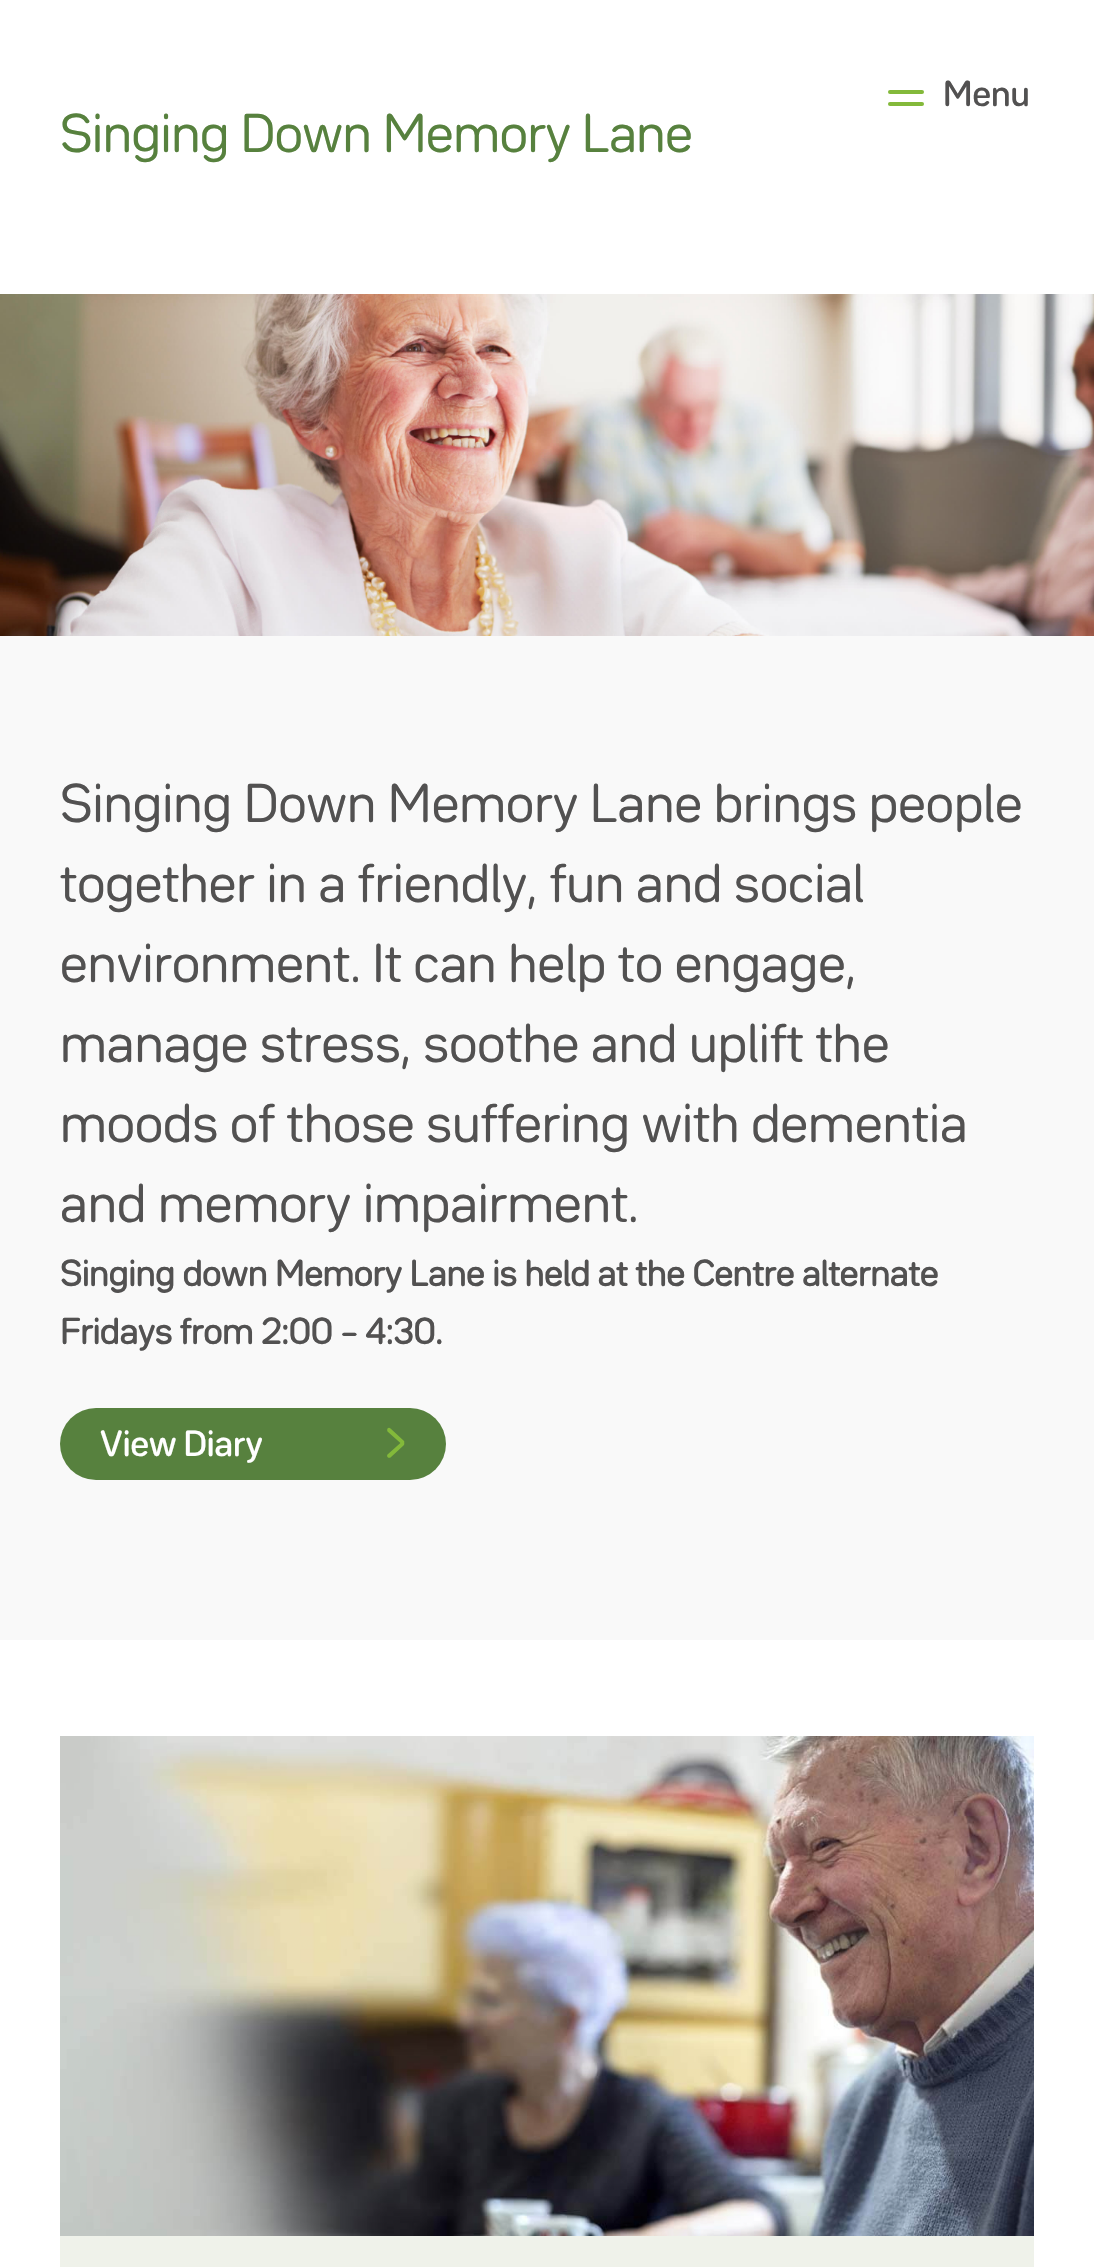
#include "include/core/SkBlurTypes.h"
#include "include/core/SkCanvas.h"
#include "include/core/SkData.h"
#include "include/core/SkFont.h"
#include "include/core/SkFontMgr.h"
#include "include/core/SkImage.h"
#include "include/core/SkMaskFilter.h"
#include "include/core/SkPaint.h"
#include "include/core/SkPathBuilder.h"
#include "include/core/SkTextBlob.h"
#include "include/effects/SkDashPathEffect.h"
#include "include/effects/SkGradientShader.h"
#include "include/utils/SkParsePath.h"

extern sk_sp<SkFontMgr> fontMgr;

static SkFont font(const char* family, int weight, float size, bool italic = false) {
    SkFontStyle style(weight, SkFontStyle::kNormal_Width,
        italic ? SkFontStyle::kItalic_Slant : SkFontStyle::kUpright_Slant);
    SkFont result(fontMgr->matchFamilyStyle(family, style), size);
    result.setSubpixel(true);
    return result;
}

static void drawLabel(SkCanvas* canvas, const char* s, float x, float y, const SkFont& font, SkColor color) {
    SkPaint ink(SkColor4f::FromColor(color));
    ink.setAntiAlias(true);
    canvas->drawString(s, x, y, font, ink);
}

static void drawTracked(SkCanvas* canvas, const char* s, float x, float y, const SkFont& font, const SkPaint& ink, float letter, float word) {
    std::vector<SkGlyphID> glyphs(font.countText(s, strlen(s), SkTextEncoding::kUTF8));
    std::vector<float> xs(glyphs.size());
    font.textToGlyphs(s, strlen(s), SkTextEncoding::kUTF8, glyphs);
    font.getXPos(glyphs, xs, x);
    float extra = 0;
    for (size_t i = 0; i < glyphs.size(); i++) {
        xs[i] += extra;
        extra += letter + word * (glyphs[i] == font.unicharToGlyph(' '));
    }
    canvas->drawTextBlob(SkTextBlob::MakeFromPosHGlyphs(glyphs, xs, y, font), 0, 0, ink);
}

static void fillRect(SkCanvas* canvas, float x, float y, float w, float h, SkColor color) {
    SkPaint ink(SkColor4f::FromColor(color));
    ink.setAntiAlias(true);
    canvas->drawRect(SkRect::MakeXYWH(x, y, w, h), ink);
}

static void fillRRect(SkCanvas* canvas, float x, float y, float w, float h, float radius, SkColor color) {
    SkPaint ink(SkColor4f::FromColor(color));
    ink.setAntiAlias(true);
    canvas->drawRoundRect(SkRect::MakeXYWH(x, y, w, h), radius, radius, ink);
}

static void drawPhoto(SkCanvas* canvas, const char* path, float x, float y, float w, float h) {
    auto image = SkImages::DeferredFromEncodedData(SkData::MakeFromFileName(path));
    canvas->drawImageRect(image, SkRect::MakeXYWH(x, y, w, h), SkSamplingOptions());
}

static SkPath parsePath(const char* data, bool evenOdd = false) {
    SkPath result = *SkParsePath::FromSVGString(data);
    if (evenOdd) result.setFillType(SkPathFillType::kEvenOdd);
    return result;
}

void draw(SkCanvas* canvas) {
    SkPaint paint;
    paint.setAntiAlias(true);
    canvas->clear(0xFFFFFFFF);
    fillRRect(canvas, 888, 90, 36, 4, 2, 0xFF83B93A);
    fillRRect(canvas, 888, 102, 36, 4, 2, 0xFF83B93A);
    SkFont font1 = font("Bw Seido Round", 500, 32);
    drawLabel(canvas, "Menu", 943, 106, font1, 0xFF525151);
    SkFont font2 = font("Bw Seido Round", 400, 48);
    paint.setColor(0xFF57813E);
    drawTracked(canvas, "Singing Down Memory Lane", 60, 152, font2, paint, -0.4f, 0);
    drawPhoto(canvas, "assets/img1.png", 0, 294, 1094, 342);
    fillRect(canvas, 0, 636, 1094, 1004, 0xFFF9F9F9);
    drawLabel(canvas, "Singing Down Memory Lane brings people", 60, 822, font2, 0xFF525151);
    drawLabel(canvas, "together in a friendly, fun and social", 60, 902, font2, 0xFF525151);
    drawLabel(canvas, "environment. It can help to engage,", 60, 982, font2, 0xFF525151);
    drawLabel(canvas, "manage stress, soothe and uplift the", 60, 1062, font2, 0xFF525151);
    drawLabel(canvas, "moods of those suffering with dementia", 60, 1142, font2, 0xFF525151);
    drawLabel(canvas, "and memory impairment.", 60, 1222, font2, 0xFF525151);
    SkFont font3 = font("Bw Seido Round", 700, 32);
    drawLabel(canvas, "Singing down Memory Lane is held at the Centre alternate", 60, 1286, font3, 0xFF525151);
    drawLabel(canvas, "Fridays from 2:00 – 4:30.", 60, 1344, font3, 0xFF525151);
    fillRRect(canvas, 60, 1408, 386, 72, 36, 0xFF57813E);
    drawLabel(canvas, "View Diary", 100, 1456, font1, 0xFFFFFFFF);
    paint.setColor(0xFF83B93A);
    canvas->drawPath(parsePath("M390.5 1428.5L403.5 1440.5C404.5 1441 404.5 1442.5 404 1443C403 1444 402 1444 401 1443.5L387.5 1431.5C387 1430.5 387 1429.5 387.5 1428.5C388.5 1427.5 389.5 1427.5 390.5 1428.5Z"), paint);
    canvas->drawPath(parsePath("M387.5 1454.5L401 1442.5C402 1441.5 403 1441.5 404 1442.5C404.5 1443.5 404.5 1444.5 403.5 1445.5L390.5 1457.5C389.5 1458 388.5 1458 387.5 1457C387 1456.5 387 1455 387.5 1454.5Z"), paint);
    fillRect(canvas, 60, 2236, 974, 31, 0xFFEFF2EA);
    drawPhoto(canvas, "assets/img2.png", 60, 1736, 974, 500);
}
